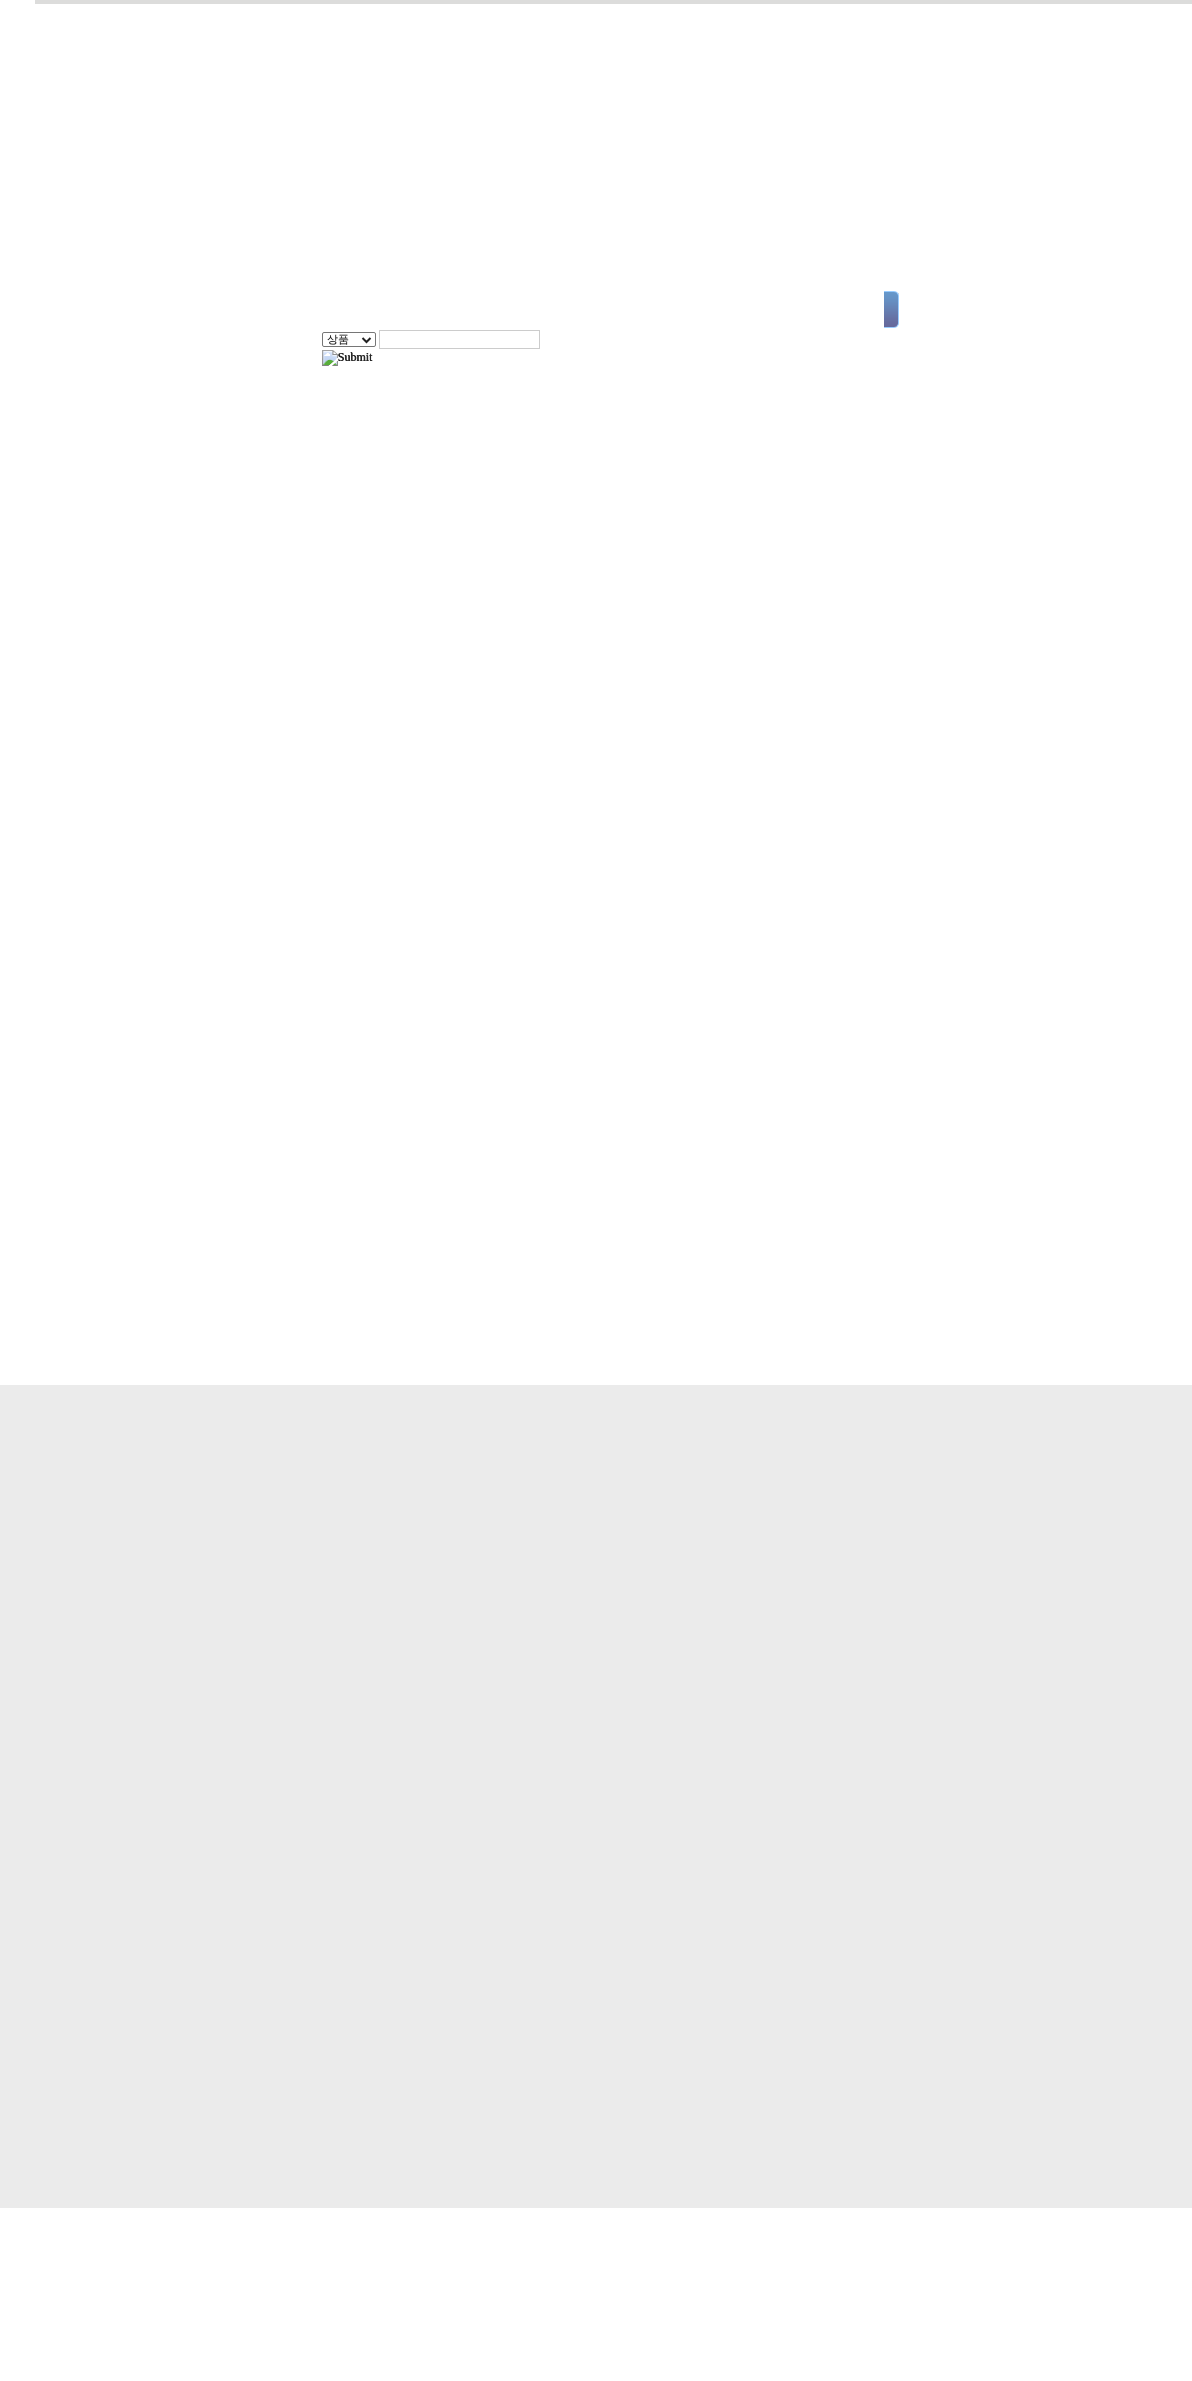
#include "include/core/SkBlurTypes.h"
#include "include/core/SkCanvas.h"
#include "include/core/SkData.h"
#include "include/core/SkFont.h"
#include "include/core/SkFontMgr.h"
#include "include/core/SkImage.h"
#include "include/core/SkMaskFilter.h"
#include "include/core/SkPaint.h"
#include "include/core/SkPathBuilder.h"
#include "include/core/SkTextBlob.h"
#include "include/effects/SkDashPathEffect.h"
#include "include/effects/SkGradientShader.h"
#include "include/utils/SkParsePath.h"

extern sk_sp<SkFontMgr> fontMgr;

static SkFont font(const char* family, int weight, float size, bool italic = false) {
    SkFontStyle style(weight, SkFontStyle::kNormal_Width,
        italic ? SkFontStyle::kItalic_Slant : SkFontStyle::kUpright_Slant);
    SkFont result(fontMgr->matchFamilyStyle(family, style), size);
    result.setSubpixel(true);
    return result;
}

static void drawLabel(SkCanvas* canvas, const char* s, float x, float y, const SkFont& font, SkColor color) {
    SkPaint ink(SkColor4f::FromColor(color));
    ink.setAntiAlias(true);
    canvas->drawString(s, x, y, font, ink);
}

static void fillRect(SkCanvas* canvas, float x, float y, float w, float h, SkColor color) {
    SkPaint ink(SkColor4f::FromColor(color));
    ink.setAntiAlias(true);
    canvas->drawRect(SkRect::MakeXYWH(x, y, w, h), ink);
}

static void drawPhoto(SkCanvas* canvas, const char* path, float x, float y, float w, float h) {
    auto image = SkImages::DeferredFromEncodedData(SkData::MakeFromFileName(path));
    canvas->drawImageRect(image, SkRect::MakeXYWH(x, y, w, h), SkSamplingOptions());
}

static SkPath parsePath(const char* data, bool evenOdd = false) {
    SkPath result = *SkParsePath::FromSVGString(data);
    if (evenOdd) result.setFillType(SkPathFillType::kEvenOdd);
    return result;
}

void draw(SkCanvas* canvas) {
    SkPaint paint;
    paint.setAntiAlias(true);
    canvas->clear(0xFFFFFFFF);
    fillRect(canvas, 35, 0, 1157, 4, 0xFFDCDCDB);
    drawPhoto(canvas, "assets/img1.png", 884, 291, 15, 37);
    paint.setStroke(true);
    paint.setStrokeWidth(1);
    paint.setColor(0xFF767676);
    canvas->drawRoundRect(SkRect::MakeXYWH(322.5f, 332.5f, 53, 14), 1.5f, 1.5f, paint);
    paint.setStrokeWidth(2);
    paint.setColor(0xFF222222);
    canvas->drawPath(parsePath("M362.5 338L366.5 342L370.5 338"), paint);
    SkFont font1 = font("WenQuanYi Zen Hei", 500, 11);
    drawLabel(canvas, "상품", 327, 343, font1, 0xFF222222);
    paint.setStrokeWidth(1);
    paint.setColor(0xFFCCCCCC);
    canvas->drawRect(SkRect::MakeXYWH(379.5f, 330.5f, 160, 18), paint);
    drawPhoto(canvas, "assets/img2.png", 322, 350, 50, 16);
    SkFont font2 = font("Liberation Serif", 400, 12);
    drawLabel(canvas, "Submit", 338, 361, font2, 0xFF222222);
    fillRect(canvas, 0, 1385, 1192, 823, 0xFFEBEBEB);
}
